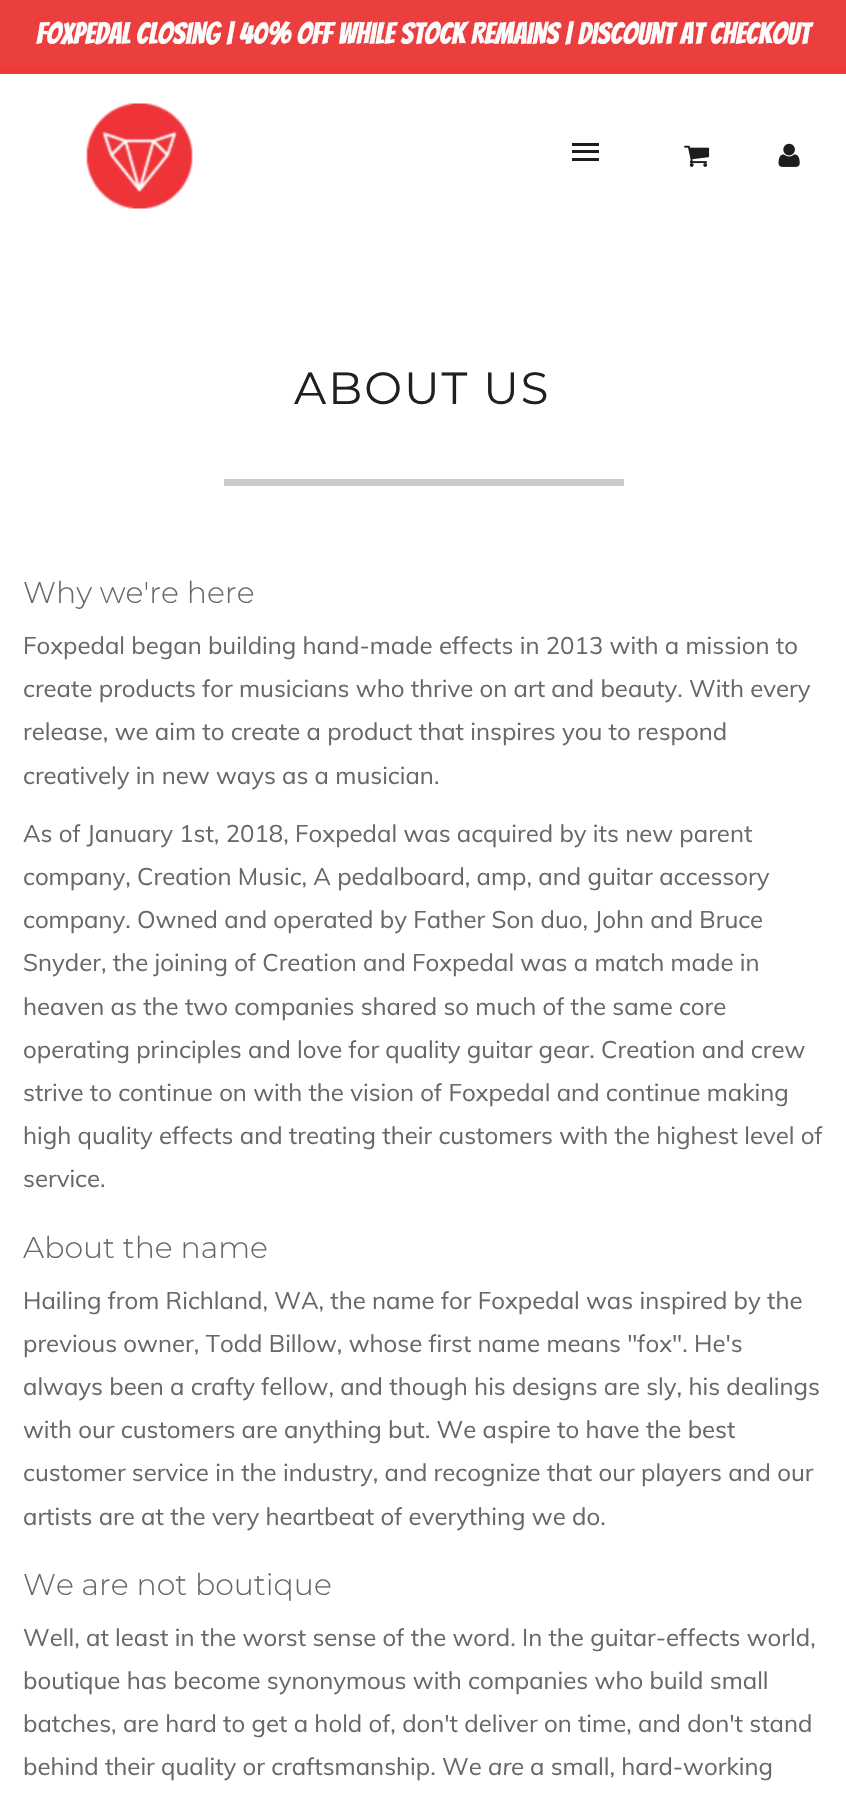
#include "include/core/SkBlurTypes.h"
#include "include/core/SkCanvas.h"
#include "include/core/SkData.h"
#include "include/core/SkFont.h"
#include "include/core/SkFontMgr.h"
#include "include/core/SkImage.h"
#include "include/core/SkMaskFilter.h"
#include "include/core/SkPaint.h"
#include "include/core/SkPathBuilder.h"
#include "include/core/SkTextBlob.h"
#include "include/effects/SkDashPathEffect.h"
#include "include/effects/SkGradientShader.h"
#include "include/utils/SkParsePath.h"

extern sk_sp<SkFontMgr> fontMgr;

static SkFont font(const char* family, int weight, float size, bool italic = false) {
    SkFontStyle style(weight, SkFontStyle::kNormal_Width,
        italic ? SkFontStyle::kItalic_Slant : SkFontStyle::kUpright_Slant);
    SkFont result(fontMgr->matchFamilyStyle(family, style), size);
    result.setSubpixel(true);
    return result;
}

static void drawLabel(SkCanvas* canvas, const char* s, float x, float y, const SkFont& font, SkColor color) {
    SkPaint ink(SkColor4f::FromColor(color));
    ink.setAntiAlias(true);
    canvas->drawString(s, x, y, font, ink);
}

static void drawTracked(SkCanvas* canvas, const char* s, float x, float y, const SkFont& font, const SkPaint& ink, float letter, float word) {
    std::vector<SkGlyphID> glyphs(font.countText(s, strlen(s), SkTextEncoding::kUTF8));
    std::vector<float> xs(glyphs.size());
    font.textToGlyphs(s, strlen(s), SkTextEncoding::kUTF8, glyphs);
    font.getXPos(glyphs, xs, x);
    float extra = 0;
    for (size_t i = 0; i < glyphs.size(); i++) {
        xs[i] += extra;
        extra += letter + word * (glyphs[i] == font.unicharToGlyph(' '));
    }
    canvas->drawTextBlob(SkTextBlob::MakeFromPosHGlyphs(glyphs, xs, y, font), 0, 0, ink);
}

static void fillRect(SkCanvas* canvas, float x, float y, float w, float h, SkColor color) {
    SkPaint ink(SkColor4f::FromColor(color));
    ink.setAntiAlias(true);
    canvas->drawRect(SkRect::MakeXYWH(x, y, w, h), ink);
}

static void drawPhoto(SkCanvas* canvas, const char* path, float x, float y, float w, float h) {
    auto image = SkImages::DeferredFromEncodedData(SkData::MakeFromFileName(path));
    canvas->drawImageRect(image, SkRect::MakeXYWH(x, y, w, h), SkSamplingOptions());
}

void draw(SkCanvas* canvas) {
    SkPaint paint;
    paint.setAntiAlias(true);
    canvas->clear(0xFFFFFFFF);
    fillRect(canvas, 0, 0, 846, 66, 0xFFEB3E3E);
    SkFont font1 = font("Bangers", 400, 30);
    drawLabel(canvas, "Foxpedal Closing | 40% off while Stock Remains | Discount At Checkout", 36, 44, font1, 0xFFFCFCFC);
    fillRect(canvas, 0, 66, 846, 8, 0xFFEF3839);
    drawPhoto(canvas, "assets/img1.png", 86, 103, 107, 106);
    fillRect(canvas, 572, 143, 27, 3, 0xFF1C1D1D);
    fillRect(canvas, 572, 150, 27, 3, 0xFF1C1D1D);
    fillRect(canvas, 572, 158, 27, 3, 0xFF1C1D1D);
    drawPhoto(canvas, "assets/img2.png", 684, 145, 26, 22);
    drawPhoto(canvas, "assets/img3.png", 778, 143, 22, 24);
    fillRect(canvas, 224, 479, 400, 7, 0xFFCCCCCC);
    SkFont font2 = font("Montserrat", 400, 45);
    paint.setColor(0xFF202020);
    drawTracked(canvas, "ABOUT US", 294, 404, font2, paint, 2, 0);
    SkFont font3 = font("Montserrat", 300, 30);
    drawLabel(canvas, "Why we're here", 23, 603, font3, 0xFF686868);
    SkFont font4 = font("Muli", 400, 24);
    drawLabel(canvas, "Foxpedal began building hand-made effects in 2013 with a mission to", 23, 654, font4, 0xFF686868);
    drawLabel(canvas, "create products for musicians who thrive on art and beauty. With every", 23, 697, font4, 0xFF686868);
    drawLabel(canvas, "release, we aim to create a product that inspires you to respond", 23, 740, font4, 0xFF686868);
    drawLabel(canvas, "creatively in new ways as a musician.", 23, 784, font4, 0xFF686868);
    drawLabel(canvas, "As of January 1st, 2018, Foxpedal was acquired by its new parent", 23, 842, font4, 0xFF686868);
    drawLabel(canvas, "company, Creation Music, A pedalboard, amp, and guitar accessory", 23, 885, font4, 0xFF686868);
    drawLabel(canvas, "company. Owned and operated by Father Son duo, John and Bruce", 23, 928, font4, 0xFF686868);
    drawLabel(canvas, "Snyder, the joining of Creation and Foxpedal was a match made in", 23, 971, font4, 0xFF686868);
    drawLabel(canvas, "heaven as the two companies shared so much of the same core", 23, 1015, font4, 0xFF686868);
    drawLabel(canvas, "operating principles and love for quality guitar gear. Creation and crew", 23, 1058, font4, 0xFF686868);
    drawLabel(canvas, "strive to continue on with the vision of Foxpedal and continue making", 23, 1101, font4, 0xFF686868);
    drawLabel(canvas, "high quality effects and treating their customers with the highest level of", 23, 1144, font4, 0xFF686868);
    drawLabel(canvas, "service.", 23, 1187, font4, 0xFF686868);
    drawLabel(canvas, "About the name", 23, 1258, font3, 0xFF686868);
    drawLabel(canvas, "Hailing from Richland, WA, the name for Foxpedal was inspired by the", 23, 1309, font4, 0xFF686868);
    drawLabel(canvas, "previous owner, Todd Billow, whose first name means \"fox\". He's", 23, 1352, font4, 0xFF686868);
    drawLabel(canvas, "always been a crafty fellow, and though his designs are sly, his dealings", 23, 1395, font4, 0xFF686868);
    drawLabel(canvas, "with our customers are anything but. We aspire to have the best", 23, 1438, font4, 0xFF686868);
    drawLabel(canvas, "customer service in the industry, and recognize that our players and our", 23, 1481, font4, 0xFF686868);
    drawLabel(canvas, "artists are at the very heartbeat of everything we do.", 23, 1525, font4, 0xFF686868);
    drawLabel(canvas, "We are not boutique", 23, 1595, font3, 0xFF686868);
    drawLabel(canvas, "Well, at least in the worst sense of the word. In the guitar-effects world,", 23, 1646, font4, 0xFF686868);
    drawLabel(canvas, "boutique has become synonymous with companies who build small", 23, 1689, font4, 0xFF686868);
    drawLabel(canvas, "batches, are hard to get a hold of, don't deliver on time, and don't stand", 23, 1732, font4, 0xFF686868);
    drawLabel(canvas, "behind their quality or craftsmanship. We", 23, 1775, font4, 0xFF686868);
    SkFont font5 = font("Muli", 400, 24, true);
    drawLabel(canvas, "are", 488, 1775, font5, 0xFF686868);
    drawLabel(canvas, "a small, hard-working", 530, 1775, font4, 0xFF686868);
}
